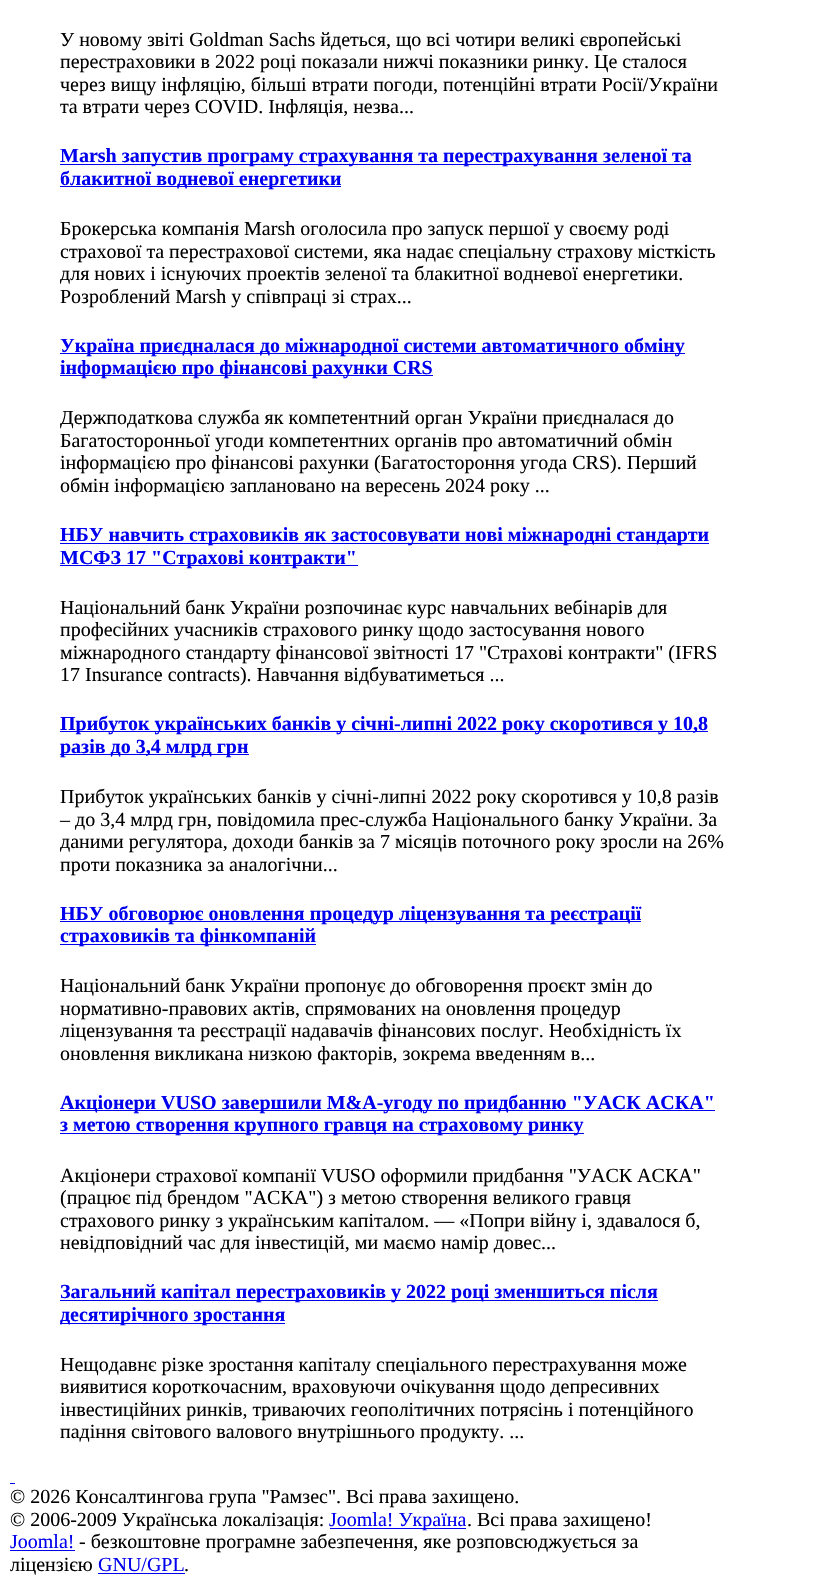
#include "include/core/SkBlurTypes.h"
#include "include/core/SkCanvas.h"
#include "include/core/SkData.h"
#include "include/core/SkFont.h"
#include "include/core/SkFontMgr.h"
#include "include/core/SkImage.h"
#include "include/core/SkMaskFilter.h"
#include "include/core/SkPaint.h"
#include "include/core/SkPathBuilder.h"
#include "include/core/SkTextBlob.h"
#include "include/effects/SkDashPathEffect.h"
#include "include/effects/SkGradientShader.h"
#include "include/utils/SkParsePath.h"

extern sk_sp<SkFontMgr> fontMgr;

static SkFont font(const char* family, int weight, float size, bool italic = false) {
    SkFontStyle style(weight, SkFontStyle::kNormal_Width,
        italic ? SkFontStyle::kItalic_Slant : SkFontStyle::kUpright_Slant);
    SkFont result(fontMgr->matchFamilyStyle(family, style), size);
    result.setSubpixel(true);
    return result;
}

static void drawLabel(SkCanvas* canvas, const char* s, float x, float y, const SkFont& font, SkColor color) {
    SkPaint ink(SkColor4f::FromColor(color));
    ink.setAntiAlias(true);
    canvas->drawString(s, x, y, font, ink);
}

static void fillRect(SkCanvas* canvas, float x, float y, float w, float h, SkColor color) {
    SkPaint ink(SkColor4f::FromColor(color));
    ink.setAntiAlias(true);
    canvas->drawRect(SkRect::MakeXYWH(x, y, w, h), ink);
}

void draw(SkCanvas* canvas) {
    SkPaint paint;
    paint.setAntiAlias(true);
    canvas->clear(0xFFFFFFFF);
    SkFont font1 = font("Liberation Serif", 400, 20);
    drawLabel(canvas, "У новому звіті Goldman Sachs йдеться, що всі чотири великі європейські", 60, 46, font1, 0xFF000000);
    drawLabel(canvas, "перестраховики в 2022 році показали нижчі показники ринку. Це сталося", 60, 68, font1, 0xFF000000);
    drawLabel(canvas, "через вищу інфляцію, більші втрати погоди, потенційні втрати Росії/України", 60, 91, font1, 0xFF000000);
    drawLabel(canvas, "та втрати через COVID. Інфляція, незва...", 60, 113, font1, 0xFF000000);
    fillRect(canvas, 60, 164, 631, 1, 0xFF0000EE);
    SkFont font2 = font("Liberation Serif", 700, 20);
    drawLabel(canvas, "Marsh запустив програму страхування та перестрахування зеленої та", 60, 162, font2, 0xFF0000EE);
    fillRect(canvas, 60, 186, 281, 1, 0xFF0000EE);
    drawLabel(canvas, "блакитної водневої енергетики", 60, 185, font2, 0xFF0000EE);
    drawLabel(canvas, "Брокерська компанія Marsh оголосила про запуск першої у своєму роді", 60, 235, font1, 0xFF000000);
    drawLabel(canvas, "страхової та перестрахової системи, яка надає спеціальну страхову місткість", 60, 258, font1, 0xFF000000);
    drawLabel(canvas, "для нових і існуючих проектів зеленої та блакитної водневої енергетики.", 60, 280, font1, 0xFF000000);
    drawLabel(canvas, "Розроблений Marsh у співпраці зі страх...", 60, 303, font1, 0xFF000000);
    fillRect(canvas, 60, 353, 625, 1, 0xFF0000EE);
    drawLabel(canvas, "Україна приєдналася до міжнародної системи автоматичного обміну", 60, 352, font2, 0xFF0000EE);
    fillRect(canvas, 60, 375, 373, 1, 0xFF0000EE);
    drawLabel(canvas, "інформацією про фінансові рахунки CRS", 60, 374, font2, 0xFF0000EE);
    drawLabel(canvas, "Держподаткова служба як компетентний орган України приєдналася до", 60, 424, font1, 0xFF000000);
    drawLabel(canvas, "Багатосторонньої угоди компетентних органів про автоматичний обмін", 60, 447, font1, 0xFF000000);
    drawLabel(canvas, "інформацією про фінансові рахунки (Багатостороння угода CRS). Перший", 60, 469, font1, 0xFF000000);
    drawLabel(canvas, "обмін інформацією заплановано на вересень 2024 року ...", 60, 492, font1, 0xFF000000);
    fillRect(canvas, 60, 543, 649, 1, 0xFF0000EE);
    drawLabel(canvas, "НБУ навчить страховиків як застосовувати нові міжнародні стандарти", 60, 541, font2, 0xFF0000EE);
    fillRect(canvas, 60, 565, 298, 1, 0xFF0000EE);
    drawLabel(canvas, "МСФЗ 17 \"Страхові контракти\"", 60, 564, font2, 0xFF0000EE);
    drawLabel(canvas, "Національний банк України розпочинає курс навчальних вебінарів для", 60, 614, font1, 0xFF000000);
    drawLabel(canvas, "професійних учасників страхового ринку щодо застосування нового", 60, 636, font1, 0xFF000000);
    drawLabel(canvas, "міжнародного стандарту фінансової звітності 17 \"Страхові контракти\" (IFRS", 60, 659, font1, 0xFF000000);
    drawLabel(canvas, "17 Insurance contracts). Навчання відбуватиметься ...", 60, 681, font1, 0xFF000000);
    fillRect(canvas, 60, 731, 648, 1, 0xFF0000EE);
    drawLabel(canvas, "Прибуток українських банків у січні-липні 2022 року скоротився у 10,8", 60, 730, font2, 0xFF0000EE);
    fillRect(canvas, 60, 754, 189, 1, 0xFF0000EE);
    drawLabel(canvas, "разів до 3,4 млрд грн", 60, 753, font2, 0xFF0000EE);
    drawLabel(canvas, "Прибуток українських банків у січні-липні 2022 року скоротився у 10,8 разів", 60, 803, font1, 0xFF000000);
    drawLabel(canvas, "– до 3,4 млрд грн, повідомила прес-служба Національного банку України. За", 60, 826, font1, 0xFF000000);
    drawLabel(canvas, "даними регулятора, доходи банків за 7 місяців поточного року зросли на 26%", 60, 848, font1, 0xFF000000);
    drawLabel(canvas, "проти показника за аналогічни...", 60, 871, font1, 0xFF000000);
    fillRect(canvas, 60, 921, 581, 1, 0xFF0000EE);
    drawLabel(canvas, "НБУ обговорює оновлення процедур ліцензування та реєстрації", 60, 920, font2, 0xFF0000EE);
    fillRect(canvas, 60, 944, 256, 1, 0xFF0000EE);
    drawLabel(canvas, "страховиків та фінкомпаній", 60, 942, font2, 0xFF0000EE);
    drawLabel(canvas, "Національний банк України пропонує до обговорення проєкт змін до", 60, 992, font1, 0xFF000000);
    drawLabel(canvas, "нормативно-правових актів, спрямованих на оновлення процедур", 60, 1015, font1, 0xFF000000);
    drawLabel(canvas, "ліцензування та реєстрації надавачів фінансових послуг. Необхідність їх", 60, 1037, font1, 0xFF000000);
    drawLabel(canvas, "оновлення викликана низкою факторів, зокрема введенням в...", 60, 1060, font1, 0xFF000000);
    fillRect(canvas, 60, 1110, 655, 1, 0xFF0000EE);
    drawLabel(canvas, "Акціонери VUSO завершили M&A-угоду по придбанню \"УАСК АСКА\"", 60, 1109, font2, 0xFF0000EE);
    fillRect(canvas, 60, 1133, 524, 1, 0xFF0000EE);
    drawLabel(canvas, "з метою створення крупного гравця на страховому ринку", 60, 1131, font2, 0xFF0000EE);
    drawLabel(canvas, "Акціонери страхової компанії VUSO оформили придбання \"УАСК АСКА\"", 60, 1182, font1, 0xFF000000);
    drawLabel(canvas, "(працює під брендом \"АСКА\") з метою створення великого гравця", 60, 1204, font1, 0xFF000000);
    drawLabel(canvas, "страхового ринку з українським капіталом. — «Попри війну і, здавалося б,", 60, 1227, font1, 0xFF000000);
    drawLabel(canvas, "невідповідний час для інвестицій, ми маємо намір довес...", 60, 1249, font1, 0xFF000000);
    fillRect(canvas, 60, 1300, 598, 1, 0xFF0000EE);
    drawLabel(canvas, "Загальний капітал перестраховиків у 2022 році зменшиться після", 60, 1298, font2, 0xFF0000EE);
    fillRect(canvas, 60, 1323, 225, 1, 0xFF0000EE);
    drawLabel(canvas, "десятирічного зростання", 60, 1321, font2, 0xFF0000EE);
    drawLabel(canvas, "Нещодавнє різке зростання капіталу спеціального перестрахування може", 60, 1371, font1, 0xFF000000);
    drawLabel(canvas, "виявитися короткочасним, враховуючи очікування щодо депресивних", 60, 1393, font1, 0xFF000000);
    drawLabel(canvas, "інвестиційних ринків, триваючих геополітичних потрясінь і потенційного", 60, 1416, font1, 0xFF000000);
    drawLabel(canvas, "падіння світового валового внутрішнього продукту. ...", 60, 1438, font1, 0xFF000000);
    fillRect(canvas, 10, 1483, 5, 1, 0xFF0000EE);
    drawLabel(canvas, "© 2026 Консалтингова група \"Рамзес\". Всі права захищено.", 10, 1503, font1, 0xFF000000);
    drawLabel(canvas, "© 2006-2009 Українська локалізація:", 10, 1526, font1, 0xFF000000);
    fillRect(canvas, 330, 1528, 136, 1, 0xFF0000EE);
    drawLabel(canvas, "Joomla! Україна", 329, 1526, font1, 0xFF0000EE);
    drawLabel(canvas, ". Всі права захищено!", 467, 1526, font1, 0xFF000000);
    drawLabel(canvas, "Joomla!", 10, 1548, font1, 0xFF0000EE);
    fillRect(canvas, 10, 1550, 65, 1, 0xFF0000EE);
    drawLabel(canvas, "- безкоштовне програмне забезпечення, яке розповсюджується за", 79, 1548, font1, 0xFF000000);
    drawLabel(canvas, "ліцензією", 10, 1571, font1, 0xFF000000);
    drawLabel(canvas, "GNU/GPL", 98, 1571, font1, 0xFF0000EE);
    fillRect(canvas, 98, 1573, 87, 1, 0xFF0000EE);
    drawLabel(canvas, ".", 184, 1571, font1, 0xFF000000);
}
